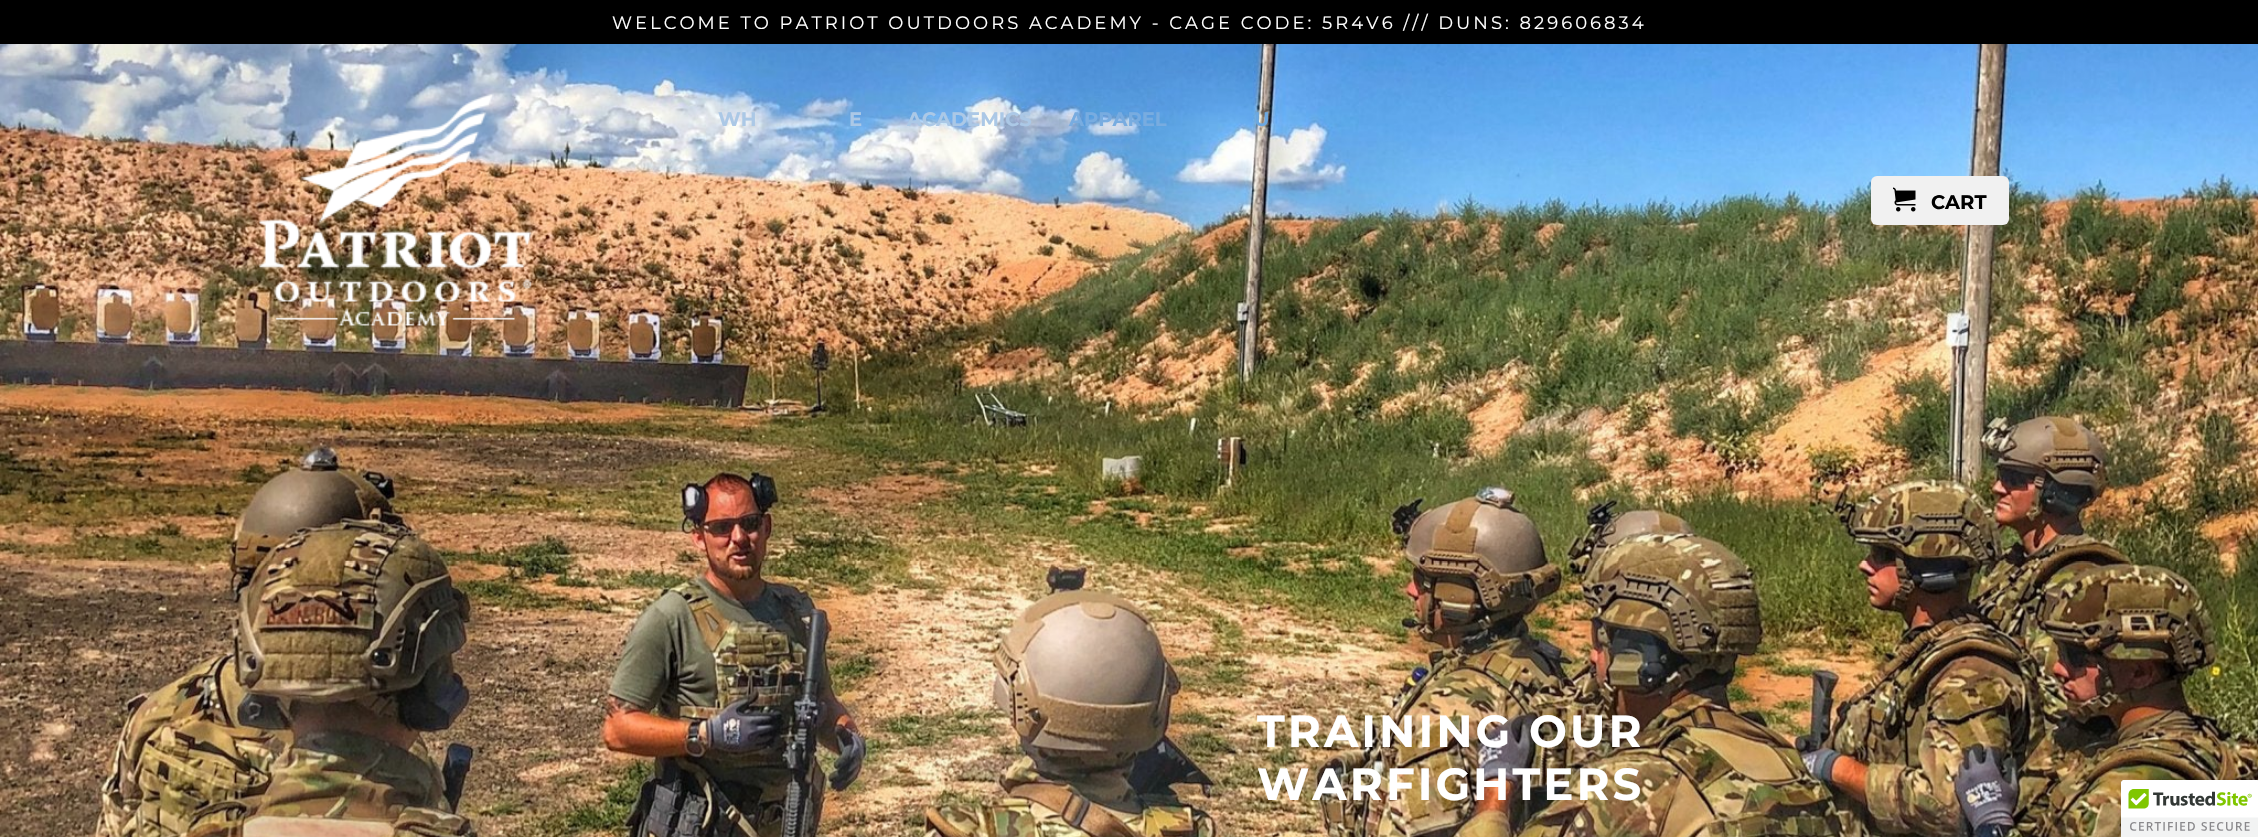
#include "include/core/SkBlurTypes.h"
#include "include/core/SkCanvas.h"
#include "include/core/SkData.h"
#include "include/core/SkFont.h"
#include "include/core/SkFontMgr.h"
#include "include/core/SkImage.h"
#include "include/core/SkMaskFilter.h"
#include "include/core/SkPaint.h"
#include "include/core/SkPathBuilder.h"
#include "include/core/SkTextBlob.h"
#include "include/effects/SkDashPathEffect.h"
#include "include/effects/SkGradientShader.h"
#include "include/utils/SkParsePath.h"

extern sk_sp<SkFontMgr> fontMgr;

static SkFont font(const char* family, int weight, float size, bool italic = false) {
    SkFontStyle style(weight, SkFontStyle::kNormal_Width,
        italic ? SkFontStyle::kItalic_Slant : SkFontStyle::kUpright_Slant);
    SkFont result(fontMgr->matchFamilyStyle(family, style), size);
    result.setSubpixel(true);
    return result;
}

static void drawLabel(SkCanvas* canvas, const char* s, float x, float y, const SkFont& font, SkColor color) {
    SkPaint ink(SkColor4f::FromColor(color));
    ink.setAntiAlias(true);
    canvas->drawString(s, x, y, font, ink);
}

static void drawTracked(SkCanvas* canvas, const char* s, float x, float y, const SkFont& font, const SkPaint& ink, float letter, float word) {
    std::vector<SkGlyphID> glyphs(font.countText(s, strlen(s), SkTextEncoding::kUTF8));
    std::vector<float> xs(glyphs.size());
    font.textToGlyphs(s, strlen(s), SkTextEncoding::kUTF8, glyphs);
    font.getXPos(glyphs, xs, x);
    float extra = 0;
    for (size_t i = 0; i < glyphs.size(); i++) {
        xs[i] += extra;
        extra += letter + word * (glyphs[i] == font.unicharToGlyph(' '));
    }
    canvas->drawTextBlob(SkTextBlob::MakeFromPosHGlyphs(glyphs, xs, y, font), 0, 0, ink);
}

static void fillRect(SkCanvas* canvas, float x, float y, float w, float h, SkColor color) {
    SkPaint ink(SkColor4f::FromColor(color));
    ink.setAntiAlias(true);
    canvas->drawRect(SkRect::MakeXYWH(x, y, w, h), ink);
}

static void fillRRect(SkCanvas* canvas, float x, float y, float w, float h, float radius, SkColor color) {
    SkPaint ink(SkColor4f::FromColor(color));
    ink.setAntiAlias(true);
    canvas->drawRoundRect(SkRect::MakeXYWH(x, y, w, h), radius, radius, ink);
}

static void drawPhoto(SkCanvas* canvas, const char* path, float x, float y, float w, float h) {
    auto image = SkImages::DeferredFromEncodedData(SkData::MakeFromFileName(path));
    canvas->drawImageRect(image, SkRect::MakeXYWH(x, y, w, h), SkSamplingOptions());
}

static SkPath parsePath(const char* data, bool evenOdd = false) {
    SkPath result = *SkParsePath::FromSVGString(data);
    if (evenOdd) result.setFillType(SkPathFillType::kEvenOdd);
    return result;
}

void draw(SkCanvas* canvas) {
    SkPaint paint;
    paint.setAntiAlias(true);
    canvas->clear(0xFFFFFFFF);
    fillRect(canvas, 0, 0, 2258, 44, 0xFF000000);
    SkFont font1 = font("Montserrat", 400, 18);
    paint.setColor(0xFFFFFFFF);
    drawTracked(canvas, "WELCOME TO PATRIOT OUTDOORS ACADEMY - CAGE CODE: 5R4V6 /// DUNS: 829606834", 612, 29, font1, paint, 3, 0);
    drawPhoto(canvas, "assets/img3.png", 0, 44, 2258, 793);
    drawPhoto(canvas, "assets/img1.png", 259, 94, 273, 232);
    SkFont font2 = font("Montserrat", 700, 19.5f);
    drawLabel(canvas, "WH", 718, 126, font2, 0xFFABC8E6);
    drawLabel(canvas, "E", 849, 126, font2, 0xFFABC8E6);
    drawLabel(canvas, "ACADEMICS", 907, 126, font2, 0xFFABC8E6);
    drawLabel(canvas, "APPAREL", 1069, 126, font2, 0xFF78ACE0);
    drawLabel(canvas, "U", 1254, 126, font2, 0xFF6BA8E1);
    fillRRect(canvas, 1871, 176, 138, 49, 6, 0xFFF1F1F1);
    drawPhoto(canvas, "assets/img2.png", 1893, 187, 23, 25);
    drawLabel(canvas, "CART", 1931, 209, font2, 0xFF000000);
    SkFont font3 = font("Montserrat", 700, 45);
    drawTracked(canvas, "TRAINING OUR", 1257, 747, font3, paint, 3, 0);
    drawTracked(canvas, "WARFIGHTERS", 1257, 800, font3, paint, 3, 0);
    paint.setColor(0x33000000);
    paint.setMaskFilter(SkMaskFilter::MakeBlur(kNormal_SkBlurStyle, 4));
    canvas->drawRoundRect(SkRect::MakeXYWH(2121, 780, 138, 57), 3, 3, paint);
    paint.setMaskFilter(nullptr);
    paint.setColor(0xFFFFFFFF);
    canvas->drawPath(parsePath("M2124 780H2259V837H2121V783C2121 781.5 2122.5 780 2124 780Z"), paint);
    drawPhoto(canvas, "assets/img4.png", 2121, 780, 137, 57);
}
